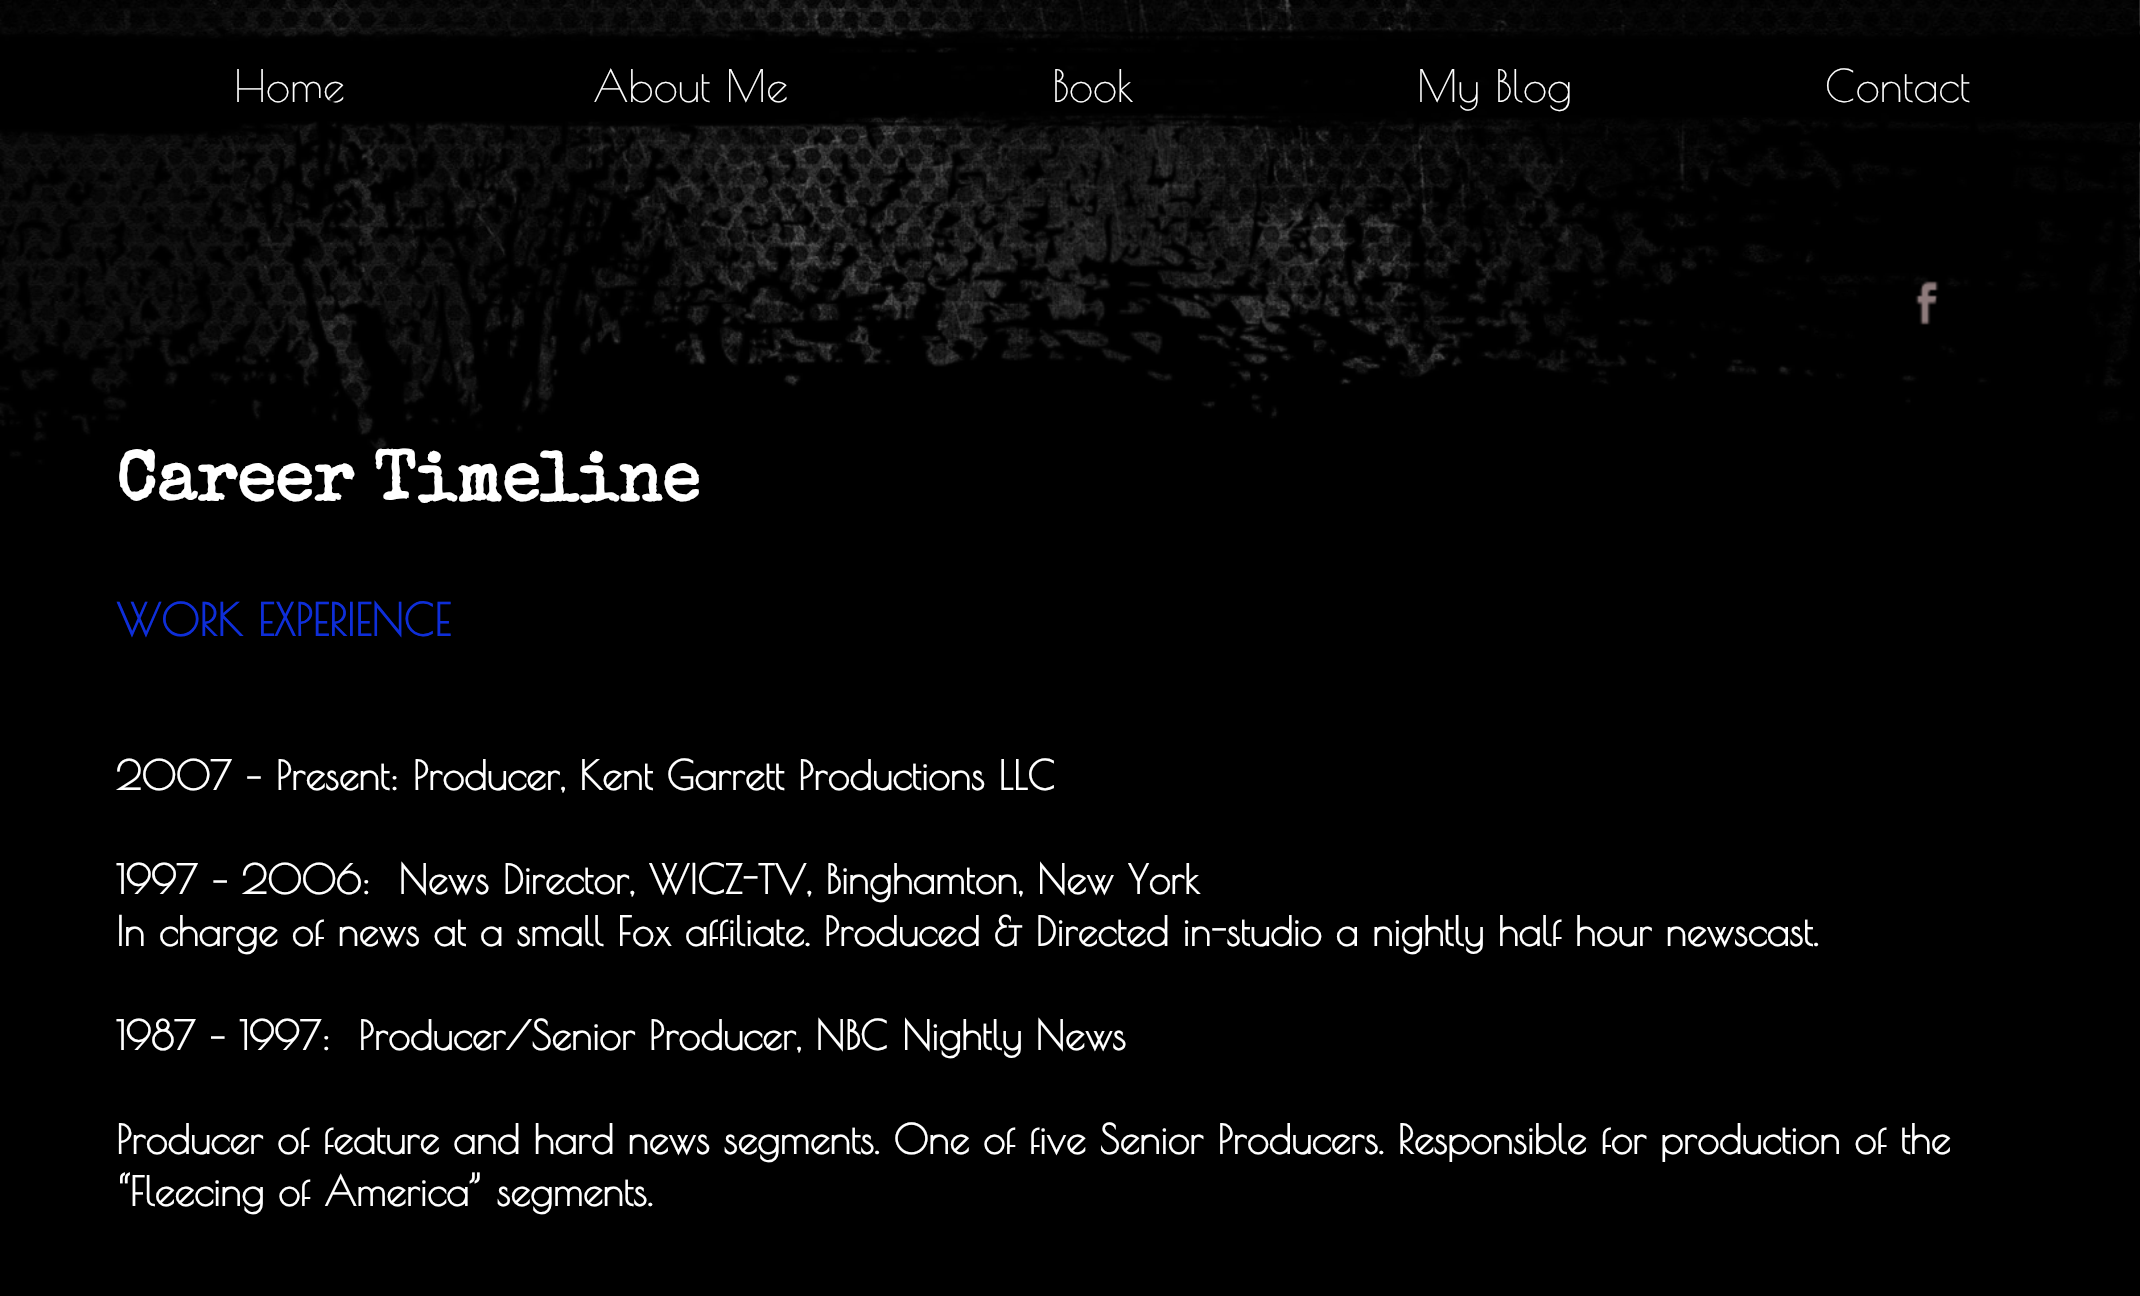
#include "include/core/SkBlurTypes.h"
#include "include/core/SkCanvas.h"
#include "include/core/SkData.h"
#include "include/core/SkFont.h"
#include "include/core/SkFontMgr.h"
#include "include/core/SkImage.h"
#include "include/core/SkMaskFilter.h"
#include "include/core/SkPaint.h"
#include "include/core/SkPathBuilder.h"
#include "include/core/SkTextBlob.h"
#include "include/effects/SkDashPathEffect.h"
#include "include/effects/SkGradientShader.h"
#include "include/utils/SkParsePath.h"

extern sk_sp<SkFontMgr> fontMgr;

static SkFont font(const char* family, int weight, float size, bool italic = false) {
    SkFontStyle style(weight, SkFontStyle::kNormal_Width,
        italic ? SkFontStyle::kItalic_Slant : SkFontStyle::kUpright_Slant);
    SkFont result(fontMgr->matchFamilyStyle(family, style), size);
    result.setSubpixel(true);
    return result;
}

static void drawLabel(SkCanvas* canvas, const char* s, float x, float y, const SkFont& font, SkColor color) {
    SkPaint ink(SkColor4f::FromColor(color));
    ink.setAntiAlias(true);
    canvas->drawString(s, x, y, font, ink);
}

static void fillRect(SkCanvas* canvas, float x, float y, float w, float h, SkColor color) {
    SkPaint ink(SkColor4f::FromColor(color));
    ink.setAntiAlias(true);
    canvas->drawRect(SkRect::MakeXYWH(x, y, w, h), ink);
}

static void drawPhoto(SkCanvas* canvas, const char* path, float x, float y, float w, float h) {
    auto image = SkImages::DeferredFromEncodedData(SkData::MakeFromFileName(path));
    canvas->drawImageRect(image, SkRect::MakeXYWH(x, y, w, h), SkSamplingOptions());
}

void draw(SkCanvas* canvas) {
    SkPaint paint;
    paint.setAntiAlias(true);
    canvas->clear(0xFFFFFFFF);
    drawPhoto(canvas, "assets/img1.png", 0, 0, 2140, 465);
    drawPhoto(canvas, "assets/img2.png", 0, 12, 2140, 134);
    SkFont font1 = font("Poiret One", 400, 44);
    drawLabel(canvas, "Home", 234, 102, font1, 0xFFFFFFFF);
    drawLabel(canvas, "About Me", 593, 102, font1, 0xFFFFFFFF);
    drawLabel(canvas, "Book", 1052, 102, font1, 0xFFFFFFFF);
    drawLabel(canvas, "My Blog", 1417, 102, font1, 0xFFFFFFFF);
    drawLabel(canvas, "Contact", 1825, 102, font1, 0xFFFFFFFF);
    fillRect(canvas, 0, 498, 2140, 798, 0xFF000000);
    drawPhoto(canvas, "assets/img3.png", 0, 98, 2140, 400);
    drawPhoto(canvas, "assets/img4.png", 1915, 281, 24, 44);
    SkFont font2 = font("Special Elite", 700, 70);
    drawLabel(canvas, "Career Timeline", 116, 500, font2, 0xFFFFFFFF);
    SkFont font3 = font("Poiret One", 700, 44);
    drawLabel(canvas, "WORK EXPERIENCE", 116, 636, font3, 0xFF0E2ED9);
    SkFont font4 = font("Poiret One", 700, 40);
    drawLabel(canvas, "2007 – Present: Producer, Kent Garrett Productions LLC", 116, 790, font4, 0xFFFFFFFF);
    drawLabel(canvas, "1997 – 2006:  News Director, WICZ-TV, Binghamton, New York", 116, 894, font4, 0xFFFFFFFF);
    drawLabel(canvas, "In charge of news at a small Fox affiliate. Produced & Directed in-studio a nightly half hour newscast.", 116, 946, font4, 0xFFFFFFFF);
    drawLabel(canvas, "1987 – 1997:  Producer/Senior Producer, NBC Nightly News", 116, 1050, font4, 0xFFFFFFFF);
    drawLabel(canvas, "Producer of feature and hard news segments. One of five Senior Producers. Responsible for production of the", 116, 1154, font4, 0xFFFFFFFF);
    drawLabel(canvas, "“Fleecing of America” segments.", 116, 1206, font4, 0xFFFFFFFF);
}
